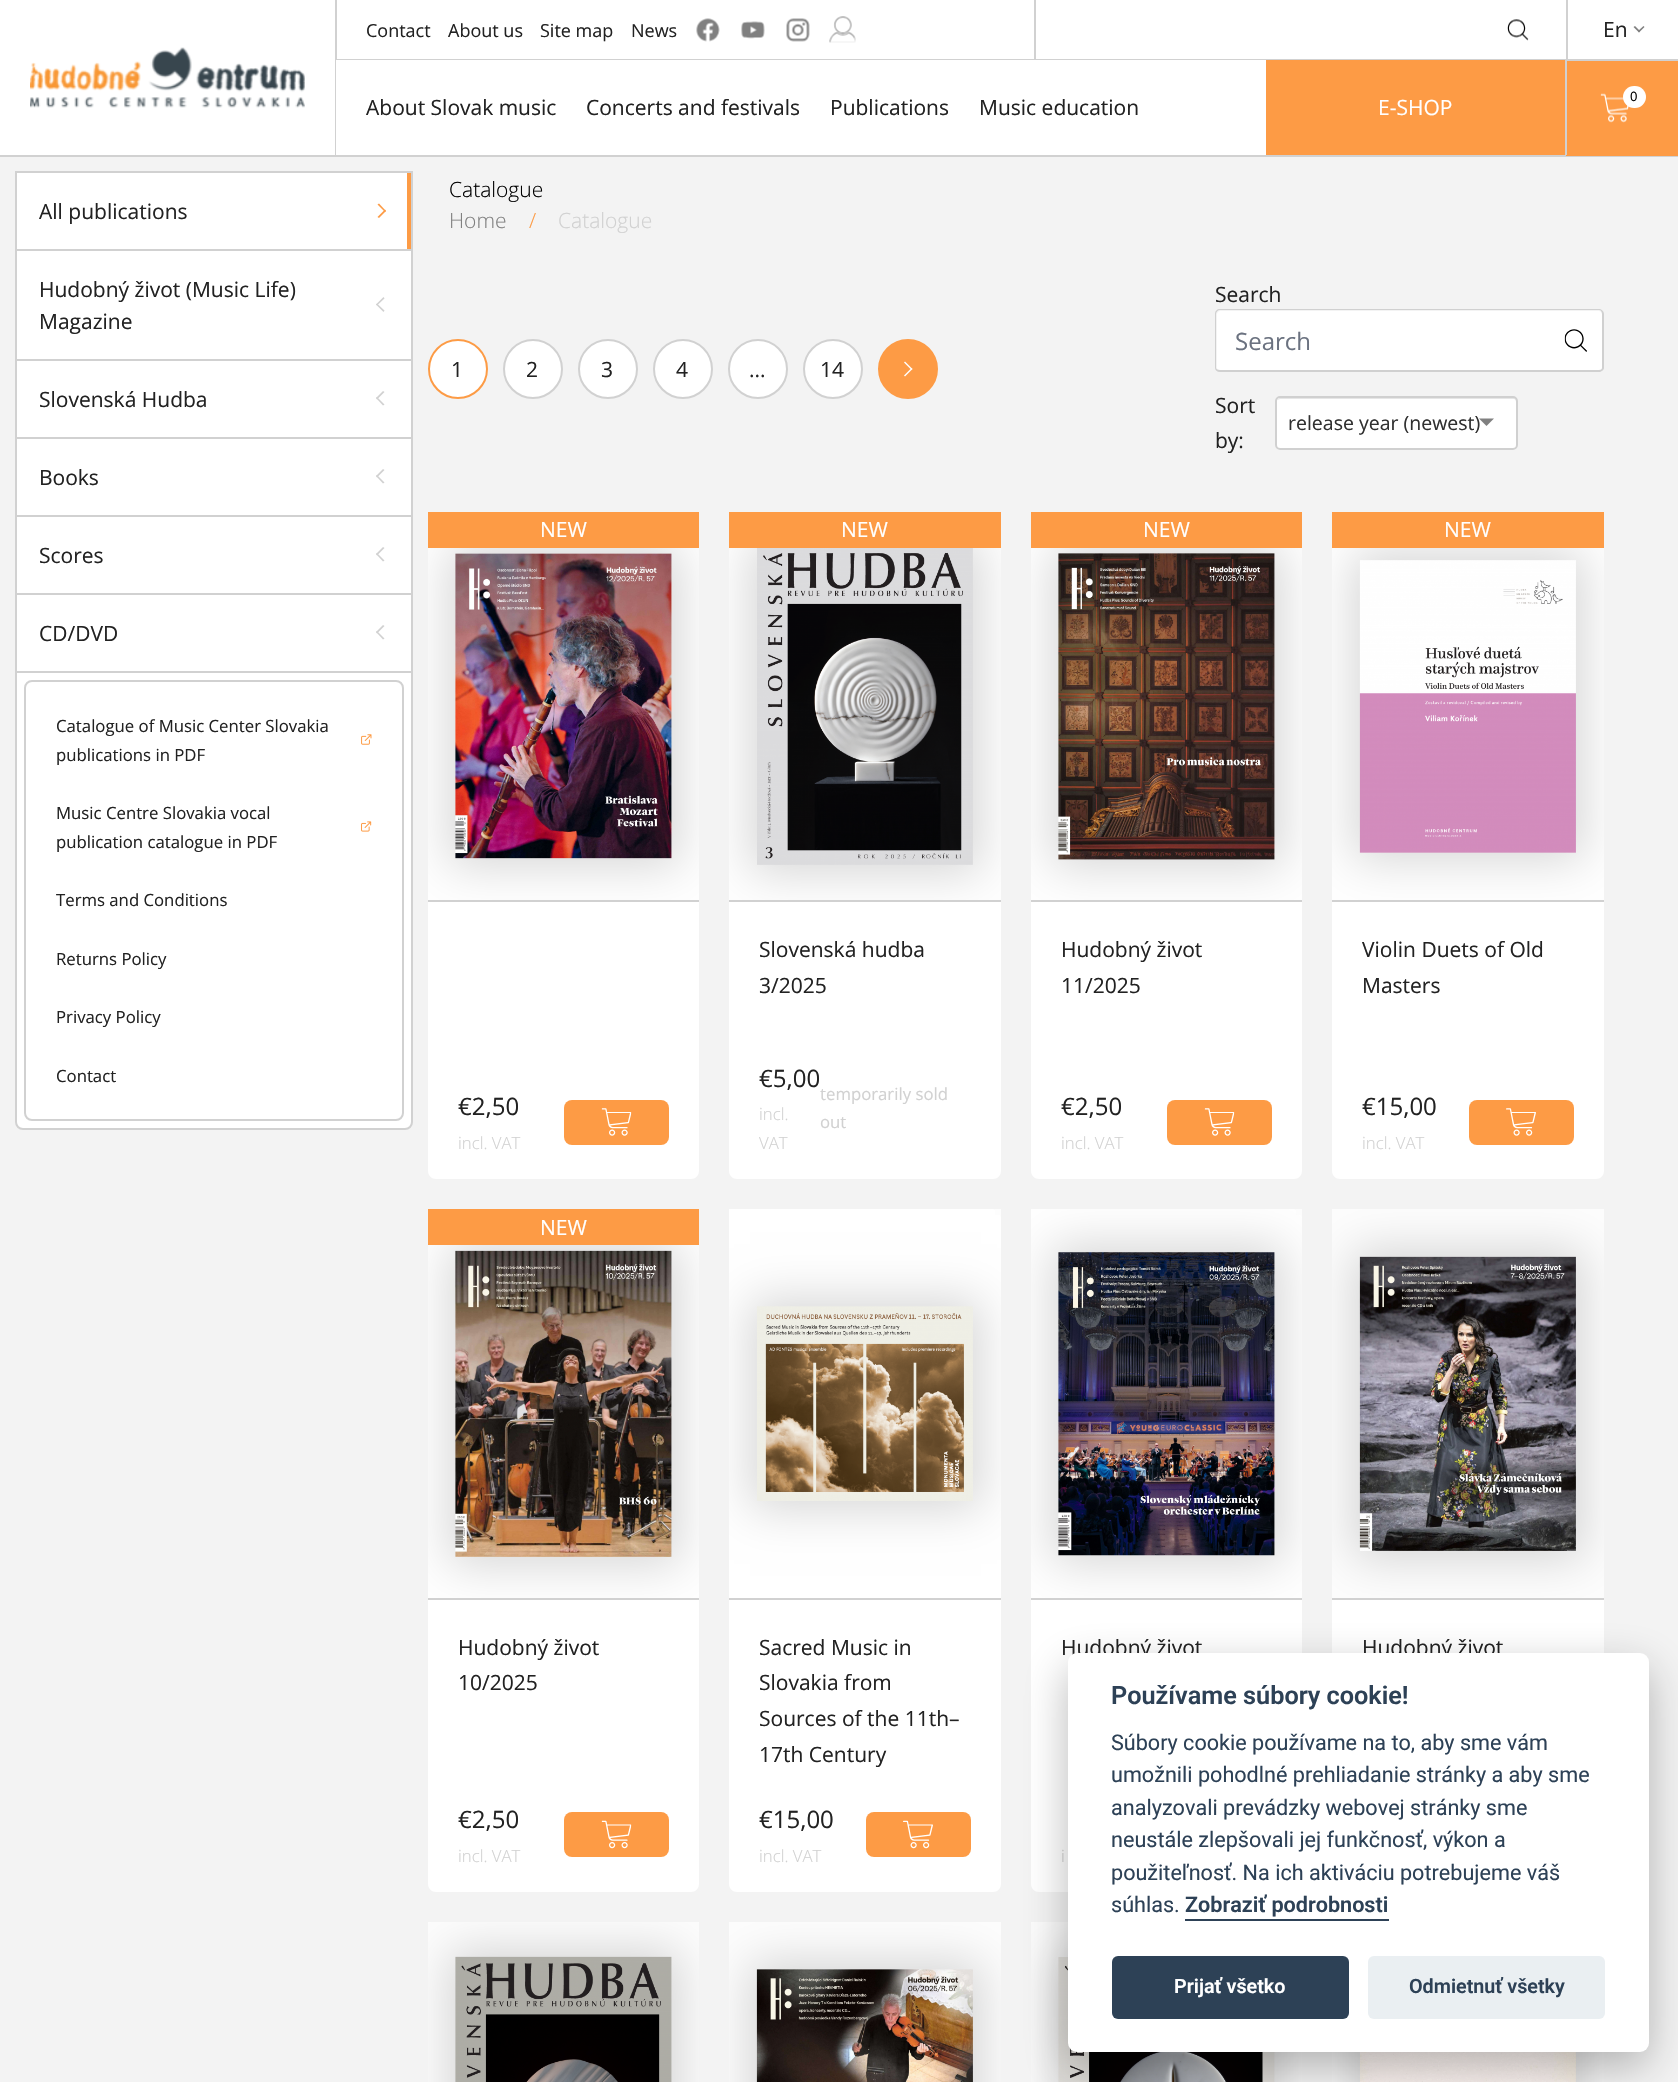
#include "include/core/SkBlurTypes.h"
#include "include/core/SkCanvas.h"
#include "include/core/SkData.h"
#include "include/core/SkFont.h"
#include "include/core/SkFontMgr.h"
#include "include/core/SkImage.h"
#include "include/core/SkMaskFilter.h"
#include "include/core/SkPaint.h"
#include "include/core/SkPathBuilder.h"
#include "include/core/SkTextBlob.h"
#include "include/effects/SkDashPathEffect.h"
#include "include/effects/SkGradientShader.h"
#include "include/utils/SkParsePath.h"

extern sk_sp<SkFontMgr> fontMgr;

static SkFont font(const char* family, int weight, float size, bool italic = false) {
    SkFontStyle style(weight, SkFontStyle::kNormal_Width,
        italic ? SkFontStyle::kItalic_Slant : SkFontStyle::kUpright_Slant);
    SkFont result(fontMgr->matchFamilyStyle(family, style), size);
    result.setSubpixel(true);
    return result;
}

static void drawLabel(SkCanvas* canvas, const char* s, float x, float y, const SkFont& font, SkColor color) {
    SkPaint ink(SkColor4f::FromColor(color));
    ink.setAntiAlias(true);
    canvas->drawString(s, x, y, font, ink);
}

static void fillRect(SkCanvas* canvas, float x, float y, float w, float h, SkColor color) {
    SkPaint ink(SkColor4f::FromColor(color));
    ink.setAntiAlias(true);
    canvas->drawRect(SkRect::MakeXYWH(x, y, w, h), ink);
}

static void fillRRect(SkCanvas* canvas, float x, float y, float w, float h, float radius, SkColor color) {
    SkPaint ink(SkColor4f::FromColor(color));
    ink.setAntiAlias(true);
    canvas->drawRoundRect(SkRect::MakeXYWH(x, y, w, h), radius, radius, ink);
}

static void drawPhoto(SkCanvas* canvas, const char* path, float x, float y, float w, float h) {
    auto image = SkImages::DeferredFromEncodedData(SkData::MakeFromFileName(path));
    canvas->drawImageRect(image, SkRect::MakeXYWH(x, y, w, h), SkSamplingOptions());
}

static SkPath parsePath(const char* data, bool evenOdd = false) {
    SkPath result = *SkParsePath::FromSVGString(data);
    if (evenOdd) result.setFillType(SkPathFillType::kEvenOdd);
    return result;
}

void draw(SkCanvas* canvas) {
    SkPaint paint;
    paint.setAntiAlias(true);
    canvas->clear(0xFFFFFFFF);
    fillRect(canvas, 0, 155, 1678, 2, 0xFFD1D1D1);
    fillRect(canvas, 336, 59, 1230, 1, 0xFFD1D1D1);
    fillRect(canvas, 335, 0, 2, 156, 0xFFD1D1D1);
    drawPhoto(canvas, "assets/img1.png", 30, 47, 275, 61);
    SkFont font1 = font("Open Sans", 400, 18);
    drawLabel(canvas, "Contact", 366, 37, font1, 0xFF222222);
    drawLabel(canvas, "About us", 448, 37, font1, 0xFF222222);
    drawLabel(canvas, "Site map", 540, 37, font1, 0xFF222222);
    drawLabel(canvas, "News", 631, 37, font1, 0xFF222222);
    drawPhoto(canvas, "assets/img2.png", 696, 18, 24, 24);
    drawPhoto(canvas, "assets/img3.png", 741, 21, 24, 18);
    drawPhoto(canvas, "assets/img4.png", 786, 18, 24, 24);
    drawPhoto(canvas, "assets/img5.png", 829, 16, 27, 27);
    fillRect(canvas, 1034, 0, 2, 60, 0xFFD1D1D1);
    drawPhoto(canvas, "assets/img6.png", 1507, 19, 22, 22);
    fillRect(canvas, 1566, 59, 112, 2, 0xFFD1D1D1);
    fillRect(canvas, 1566, 0, 2, 60, 0xFFD1D1D1);
    SkFont font2 = font("Open Sans", 400, 21);
    drawLabel(canvas, "En", 1603, 37, font2, 0xFF222222);
    paint.setColor(0xFF808080);
    canvas->drawPath(parsePath("M1643.5 26L1644.5 27L1639 32.5L1638 31Z"), paint);
    canvas->drawPath(parsePath("M1635 26L1640 31L1639 32.5L1633.5 27Z"), paint);
    fillRect(canvas, 1566, 61, 112, 95, 0xFFFD9B45);
    fillRRect(canvas, 1623, 86, 23, 22, 11, 0xFFFFFFFF);
    SkFont font3 = font("Open Sans", 400, 13);
    drawLabel(canvas, "0", 1630, 101, font3, 0xFF000000);
    drawPhoto(canvas, "assets/img7.png", 1600, 93, 31, 30);
    fillRect(canvas, 336, 60, 1, 95, 0xFFFFFFFF);
    drawLabel(canvas, "About Slovak music", 366, 115, font2, 0xFF222222);
    drawLabel(canvas, "Concerts and festivals", 586, 115, font2, 0xFF222222);
    drawLabel(canvas, "Publications", 830, 115, font2, 0xFF222222);
    drawLabel(canvas, "Music education", 979, 115, font2, 0xFF222222);
    fillRect(canvas, 1266, 60, 299, 95, 0xFFFD9B45);
    fillRect(canvas, 1565, 60, 2, 95, 0xFFD1D1D1);
    drawLabel(canvas, "E-SHOP", 1378, 115, font2, 0xFFFFFFFF);
    fillRect(canvas, 0, 157, 1678, 1925, 0xFFF3F3F3);
    paint.setColor(0xFFFFFFFF);
    canvas->drawPath(parsePath("M428 512H691C695.5 512 699 515.5 699 520V1171C699 1175.5 695.5 1179 691 1179H436C431.5 1179 428 1175.5 428 1171Z"), paint);
    fillRect(canvas, 428, 900, 271, 2, 0xFFD1D1D1);
    canvas->save();
    canvas->clipRect(SkRect::MakeXYWH(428, 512, 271, 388));
    paint.setColor(0x29000000);
    paint.setMaskFilter(SkMaskFilter::MakeBlur(kNormal_SkBlurStyle, 22.5f));
    canvas->drawRect(SkRect::MakeXYWH(449, 546, 231, 320), paint);
    paint.setMaskFilter(nullptr);
    canvas->restore();
    paint.setColor(0xFFFFFFFF);
    canvas->drawPath(parsePath("M16 172H412V1122C412 1126 409 1129 405 1129H23C19 1129 16 1126 16 1122Z"), paint);
    paint.setStroke(true);
    paint.setStrokeWidth(2);
    paint.setColor(0xFFD1D1D1);
    canvas->drawPath(parsePath("M16 172H412V1122C412 1126 409 1129 405 1129H23C19 1129 16 1126 16 1122Z"), paint);
    fillRect(canvas, 17, 249, 394, 2, 0xFFD1D1D1);
    fillRect(canvas, 407, 173, 4, 76, 0xFFFD9B45);
    drawLabel(canvas, "All publications", 39, 219, font2, 0xFF222222);
    paint.setStroke(false);
    paint.setColor(0xFFFD9B45);
    canvas->drawPath(parsePath("M377.5 204.5L379 203.5L386 211L385 212Z"), paint);
    canvas->drawPath(parsePath("M377.5 217L385 209.5L386 211L379 218Z"), paint);
    fillRect(canvas, 17, 359, 394, 2, 0xFFD1D1D1);
    drawLabel(canvas, "Hudobný život (Music Life)", 39, 297, font2, 0xFF222222);
    drawLabel(canvas, "Magazine", 39, 329, font2, 0xFF222222);
    paint.setColor(0xFFD1D1D1);
    canvas->drawPath(parsePath("M384.5 310.5L383.5 312L376 304.5L377 303.5Z"), paint);
    canvas->drawPath(parsePath("M384.5 298.5L377 305.5L376 304.5L383.5 297Z"), paint);
    fillRect(canvas, 17, 437, 394, 2, 0xFFD1D1D1);
    drawLabel(canvas, "Slovenská Hudba", 39, 407, font2, 0xFF222222);
    canvas->drawPath(parsePath("M384.5 404.5L383 405.5L376 398L377 397Z"), paint);
    canvas->drawPath(parsePath("M384.5 392L377 399.5L376 398L383 391Z"), paint);
    fillRect(canvas, 17, 515, 394, 2, 0xFFD1D1D1);
    drawLabel(canvas, "Books", 39, 485, font2, 0xFF222222);
    canvas->drawPath(parsePath("M384.5 482.5L383 483.5L376 476L377 475Z"), paint);
    canvas->drawPath(parsePath("M384.5 470L377 477.5L376 476L383 469Z"), paint);
    fillRect(canvas, 17, 593, 394, 2, 0xFFD1D1D1);
    drawLabel(canvas, "Scores", 39, 563, font2, 0xFF222222);
    canvas->drawPath(parsePath("M384.5 560.5L383 561.5L376 554L377 553Z"), paint);
    canvas->drawPath(parsePath("M384.5 548L377 555.5L376 554L383 547Z"), paint);
    fillRect(canvas, 17, 671, 394, 2, 0xFFD1D1D1);
    drawLabel(canvas, "CD/DVD", 39, 641, font2, 0xFF222222);
    canvas->drawPath(parsePath("M384.5 638.5L383 639.5L376 632L377 631Z"), paint);
    canvas->drawPath(parsePath("M384.5 626L377 633.5L376 632L383 625Z"), paint);
    paint.setStroke(true);
    canvas->drawRoundRect(SkRect::MakeXYWH(25, 681, 378, 439), 7, 7, paint);
    SkFont font4 = font("Open Sans", 400, 16.75f);
    drawLabel(canvas, "Catalogue of Music Center Slovakia", 56, 732, font4, 0xFF222222);
    drawPhoto(canvas, "assets/img8.png", 361, 734, 11, 11);
    drawLabel(canvas, "publications in PDF", 56, 761, font4, 0xFF222222);
    drawLabel(canvas, "Music Centre Slovakia vocal", 56, 819, font4, 0xFF222222);
    drawPhoto(canvas, "assets/img9.png", 361, 821, 11, 11);
    drawLabel(canvas, "publication catalogue in PDF", 56, 848, font4, 0xFF222222);
    drawLabel(canvas, "Terms and Conditions", 56, 906, font4, 0xFF222222);
    drawLabel(canvas, "Returns Policy", 56, 965, font4, 0xFF222222);
    drawLabel(canvas, "Privacy Policy", 56, 1023, font4, 0xFF222222);
    drawLabel(canvas, "Contact", 56, 1082, font4, 0xFF222222);
    SkFont font5 = font("Open Sans", 300, 21);
    drawLabel(canvas, "Catalogue", 449, 197, font5, 0xFF000000);
    drawLabel(canvas, "Home", 449, 228, font5, 0xFF808080);
    drawLabel(canvas, "/", 529, 228, font5, 0xFFFD9B45);
    drawLabel(canvas, "Catalogue", 558, 228, font5, 0xFFD1D1D1);
    paint.setStroke(false);
    paint.setColor(0xFFFFFFFF);
    canvas->drawCircle(458, 369, 29, paint);
    paint.setStroke(true);
    paint.setColor(0xFFFD9B45);
    canvas->drawCircle(458, 369, 29, paint);
    drawLabel(canvas, "1", 451, 377, font2, 0xFF222222);
    paint.setStroke(false);
    paint.setColor(0xFFFFFFFF);
    canvas->drawCircle(533, 369, 29, paint);
    paint.setStroke(true);
    paint.setColor(0xFFD1D1D1);
    canvas->drawCircle(533, 369, 29, paint);
    drawLabel(canvas, "2", 526, 377, font2, 0xFF222222);
    paint.setStroke(false);
    paint.setColor(0xFFFFFFFF);
    canvas->drawCircle(608, 369, 29, paint);
    paint.setStroke(true);
    paint.setColor(0xFFD1D1D1);
    canvas->drawCircle(608, 369, 29, paint);
    drawLabel(canvas, "3", 601, 377, font2, 0xFF222222);
    paint.setStroke(false);
    paint.setColor(0xFFFFFFFF);
    canvas->drawCircle(683, 369, 29, paint);
    paint.setStroke(true);
    paint.setColor(0xFFD1D1D1);
    canvas->drawCircle(683, 369, 29, paint);
    drawLabel(canvas, "4", 676, 377, font2, 0xFF222222);
    paint.setStroke(false);
    paint.setColor(0xFFFFFFFF);
    canvas->drawCircle(758, 369, 29, paint);
    paint.setStroke(true);
    paint.setColor(0xFFD1D1D1);
    canvas->drawCircle(758, 369, 29, paint);
    drawLabel(canvas, "...", 749, 377, font2, 0xFF222222);
    paint.setStroke(false);
    paint.setColor(0xFFFFFFFF);
    canvas->drawCircle(833, 369, 29, paint);
    paint.setStroke(true);
    paint.setColor(0xFFD1D1D1);
    canvas->drawCircle(833, 369, 29, paint);
    drawLabel(canvas, "14", 820, 377, font2, 0xFF222222);
    paint.setStroke(false);
    paint.setColor(0xFFFD9B45);
    canvas->drawCircle(908, 369, 29, paint);
    paint.setStroke(true);
    canvas->drawCircle(908, 369, 29, paint);
    paint.setStroke(false);
    paint.setColor(0xFFFFFFFF);
    canvas->drawPath(parsePath("M904 362.5L905 361.5L912.5 369L911.5 370Z"), paint);
    canvas->drawPath(parsePath("M904 375.5L911.5 368L912.5 369L905 376.5Z"), paint);
    drawLabel(canvas, "Search", 1215, 302, font2, 0xFF222222);
    canvas->drawPath(parsePath("M1220 311H1556V371H1220C1218.5 371 1217 369.5 1217 368V314C1217 312.5 1218.5 311 1220 311Z"), paint);
    paint.setColor(0xFFD0D0D0);
    canvas->drawPath(parsePath("M1220 309H1556V372H1220C1217 372 1215 370 1215 368V314C1215 311 1217 309 1220 309ZM1220 310H1556V370H1220C1218 370 1216 369 1216 368V314C1216 312 1218 310 1220 310Z", true), paint);
    SkFont font6 = font("Open Sans", 400, 24);
    drawLabel(canvas, "Search", 1235, 350, font6, 0xFF6B7280);
    paint.setColor(0xFFFFFFFF);
    canvas->drawPath(parsePath("M1550 311H1599C1600.5 311 1602 312.5 1602 314V368C1602 369.5 1600.5 371 1599 371H1550Z"), paint);
    paint.setColor(0xFFD0D0D0);
    canvas->drawPath(parsePath("M1550 309H1599C1601 309 1604 311 1604 314V368C1604 370 1601 372 1599 372H1550ZM1550 310H1599C1601 310 1602 312 1602 314V368C1602 369 1601 370 1599 370H1550Z", true), paint);
    drawPhoto(canvas, "assets/img10.png", 1564, 329, 23, 23);
    drawLabel(canvas, "Sort", 1215, 413, font2, 0xFF222222);
    drawLabel(canvas, "by:", 1215, 448, font2, 0xFF222222);
    fillRRect(canvas, 1275, 396, 243, 54, 5, 0xFFFFFFFF);
    paint.setColor(0xFFE6E6E6);
    canvas->drawPath(parsePath("M1280 399H1514C1515 399 1516 400 1516 402V448C1517 448 1517 447 1517 446V401C1517 399 1516 398 1514 398H1280C1279 398 1278 399 1277 400Z"), paint);
    paint.setStroke(true);
    paint.setColor(0xFFD0D0D0);
    canvas->drawRoundRect(SkRect::MakeXYWH(1276, 397, 241, 52), 4, 4, paint);
    SkFont font7 = font("Open Sans", 400, 19.5f);
    drawLabel(canvas, "release year (newest)", 1288, 430, font7, 0xFF303030);
    paint.setStroke(false);
    paint.setColor(0xFF808080);
    canvas->drawPath(parsePath("M1479 418.5H1494L1486.5 426Z"), paint);
    drawPhoto(canvas, "assets/img11.png", 455, 553, 217, 306);
    paint.setColor(0xFFFFFFFF);
    canvas->drawPath(parsePath("M729 512H993C997.5 512 1001 515.5 1001 520V1171C1001 1175.5 997.5 1179 993 1179H737C732.5 1179 729 1175.5 729 1171Z"), paint);
    fillRect(canvas, 729, 900, 272, 2, 0xFFD1D1D1);
    canvas->save();
    canvas->clipRect(SkRect::MakeXYWH(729, 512, 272, 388));
    paint.setColor(0x29000000);
    paint.setMaskFilter(SkMaskFilter::MakeBlur(kNormal_SkBlurStyle, 22.5f));
    canvas->drawRect(SkRect::MakeXYWH(750, 540, 231, 333), paint);
    paint.setMaskFilter(nullptr);
    canvas->restore();
    fillRect(canvas, 428, 512, 271, 36, 0xFFFD9B45);
    drawLabel(canvas, "NEW", 540, 537, font2, 0xFFFFFFFF);
    drawLabel(canvas, "€2,50", 458, 1115, font6, 0xFF222222);
    SkFont font8 = font("Open Sans", 300, 16.75f);
    drawLabel(canvas, "incl. VAT", 458, 1149, font8, 0xFFD1D1D1);
    fillRRect(canvas, 564, 1100, 105, 45, 8, 0xFFFD9B45);
    drawPhoto(canvas, "assets/img12.png", 601, 1108, 31, 28);
    paint.setColor(0xFFFFFFFF);
    canvas->drawPath(parsePath("M1031 512H1294C1298.5 512 1302 515.5 1302 520V1171C1302 1175.5 1298.5 1179 1294 1179H1039C1034.5 1179 1031 1175.5 1031 1171Z"), paint);
    fillRect(canvas, 1031, 900, 271, 2, 0xFFD1D1D1);
    canvas->save();
    canvas->clipRect(SkRect::MakeXYWH(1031, 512, 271, 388));
    paint.setColor(0x29000000);
    paint.setMaskFilter(SkMaskFilter::MakeBlur(kNormal_SkBlurStyle, 22.5f));
    canvas->drawRect(SkRect::MakeXYWH(1052, 546, 231, 321), paint);
    paint.setMaskFilter(nullptr);
    canvas->restore();
    fillRect(canvas, 729, 512, 272, 36, 0xFFFD9B45);
    drawLabel(canvas, "NEW", 841, 537, font2, 0xFFFFFFFF);
    drawPhoto(canvas, "assets/img13.png", 757, 548, 216, 317);
    drawLabel(canvas, "Slovenská hudba", 759, 957, font2, 0xFF222222);
    drawLabel(canvas, "3/2025", 759, 993, font2, 0xFF222222);
    drawLabel(canvas, "€5,00", 759, 1087, font6, 0xFF222222);
    drawLabel(canvas, "incl.", 759, 1120, font8, 0xFFD1D1D1);
    drawLabel(canvas, "VAT", 759, 1149, font8, 0xFFD1D1D1);
    drawLabel(canvas, "temporarily sold", 820, 1100, font4, 0xFFD1D1D1);
    drawLabel(canvas, "out", 820, 1128, font4, 0xFFD1D1D1);
    drawPhoto(canvas, "assets/img14.png", 1058, 553, 217, 307);
    paint.setColor(0xFFFFFFFF);
    canvas->drawPath(parsePath("M1332 512H1596C1600.5 512 1604 515.5 1604 520V1171C1604 1175.5 1600.5 1179 1596 1179H1340C1335.5 1179 1332 1175.5 1332 1171Z"), paint);
    fillRect(canvas, 1332, 900, 272, 2, 0xFFD1D1D1);
    canvas->save();
    canvas->clipRect(SkRect::MakeXYWH(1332, 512, 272, 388));
    paint.setColor(0x29000000);
    paint.setMaskFilter(SkMaskFilter::MakeBlur(kNormal_SkBlurStyle, 22.5f));
    canvas->drawRect(SkRect::MakeXYWH(1353, 552, 231, 308), paint);
    paint.setMaskFilter(nullptr);
    canvas->restore();
    fillRect(canvas, 1031, 512, 271, 36, 0xFFFD9B45);
    drawLabel(canvas, "NEW", 1143, 537, font2, 0xFFFFFFFF);
    drawLabel(canvas, "Hudobný život", 1061, 957, font2, 0xFF222222);
    drawLabel(canvas, "11/2025", 1061, 993, font2, 0xFF222222);
    drawLabel(canvas, "€2,50", 1061, 1115, font6, 0xFF222222);
    drawLabel(canvas, "incl. VAT", 1061, 1149, font8, 0xFFD1D1D1);
    fillRRect(canvas, 1167, 1100, 105, 45, 8, 0xFFFD9B45);
    drawPhoto(canvas, "assets/img12.png", 1204, 1108, 31, 28);
    drawPhoto(canvas, "assets/img15.png", 1359, 560, 217, 293);
    fillRect(canvas, 1332, 512, 272, 36, 0xFFFD9B45);
    drawLabel(canvas, "NEW", 1444, 537, font2, 0xFFFFFFFF);
    drawLabel(canvas, "Violin Duets of Old", 1362, 957, font2, 0xFF222222);
    drawLabel(canvas, "Masters", 1362, 993, font2, 0xFF222222);
    drawLabel(canvas, "€15,00", 1362, 1115, font6, 0xFF222222);
    drawLabel(canvas, "incl. VAT", 1362, 1149, font8, 0xFFD1D1D1);
    fillRRect(canvas, 1469, 1100, 105, 45, 8, 0xFFFD9B45);
    drawPhoto(canvas, "assets/img16.png", 1506, 1108, 30, 28);
    paint.setColor(0xFFFFFFFF);
    canvas->drawPath(parsePath("M428 1209H691C695.5 1209 699 1212.5 699 1217V1884C699 1888.5 695.5 1892 691 1892H436C431.5 1892 428 1888.5 428 1884Z"), paint);
    fillRect(canvas, 428, 1598, 271, 2, 0xFFD1D1D1);
    canvas->save();
    canvas->clipRect(SkRect::MakeXYWH(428, 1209, 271, 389));
    paint.setColor(0x29000000);
    paint.setMaskFilter(SkMaskFilter::MakeBlur(kNormal_SkBlurStyle, 22.5f));
    canvas->drawRect(SkRect::MakeXYWH(449, 1244, 231, 321), paint);
    paint.setMaskFilter(nullptr);
    canvas->restore();
    drawPhoto(canvas, "assets/img17.png", 455, 1250, 217, 307);
    paint.setColor(0xFFFFFFFF);
    canvas->drawPath(parsePath("M729 1209H993C997.5 1209 1001 1212.5 1001 1217V1884C1001 1888.5 997.5 1892 993 1892H737C732.5 1892 729 1888.5 729 1884Z"), paint);
    canvas->save();
    canvas->clipRect(SkRect::MakeXYWH(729, 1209, 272, 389));
    paint.setColor(0x29000000);
    paint.setMaskFilter(SkMaskFilter::MakeBlur(kNormal_SkBlurStyle, 22.5f));
    canvas->drawRect(SkRect::MakeXYWH(750, 1299, 231, 210), paint);
    paint.setMaskFilter(nullptr);
    canvas->restore();
    fillRect(canvas, 428, 1209, 271, 36, 0xFFFD9B45);
    drawLabel(canvas, "NEW", 540, 1235, font2, 0xFFFFFFFF);
    drawLabel(canvas, "Hudobný život", 458, 1655, font2, 0xFF222222);
    drawLabel(canvas, "10/2025", 458, 1690, font2, 0xFF222222);
    drawLabel(canvas, "€2,50", 458, 1828, font6, 0xFF222222);
    drawLabel(canvas, "incl. VAT", 458, 1862, font8, 0xFFD1D1D1);
    fillRRect(canvas, 564, 1812, 105, 45, 8, 0xFFFD9B45);
    drawPhoto(canvas, "assets/img18.png", 601, 1820, 31, 29);
    fillRect(canvas, 995, 1209, 6, 6, 0xFFFDFDFD);
    fillRect(canvas, 729, 1598, 272, 2, 0xFFD1D1D1);
    drawPhoto(canvas, "assets/img19.png", 757, 1306, 216, 195);
    drawLabel(canvas, "Sacred Music in", 759, 1655, font2, 0xFF222222);
    drawLabel(canvas, "Slovakia from", 759, 1690, font2, 0xFF222222);
    drawLabel(canvas, "Sources of the 11th–", 759, 1726, font2, 0xFF222222);
    drawLabel(canvas, "17th Century", 759, 1762, font2, 0xFF222222);
    drawLabel(canvas, "€15,00", 759, 1828, font6, 0xFF222222);
    drawLabel(canvas, "incl. VAT", 759, 1862, font8, 0xFFD1D1D1);
    fillRRect(canvas, 866, 1812, 105, 45, 8, 0xFFFD9B45);
    drawPhoto(canvas, "assets/img20.png", 903, 1820, 30, 29);
    paint.setColor(0xFFFFFFFF);
    canvas->drawPath(parsePath("M1031 1209H1294C1298.5 1209 1302 1212.5 1302 1217V1884C1302 1888.5 1298.5 1892 1294 1892H1039C1034.5 1892 1031 1888.5 1031 1884Z"), paint);
    fillRect(canvas, 1296, 1209, 6, 6, 0xFFFDFDFD);
    fillRect(canvas, 1031, 1598, 271, 2, 0xFFD1D1D1);
    canvas->save();
    canvas->clipRect(SkRect::MakeXYWH(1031, 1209, 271, 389));
    paint.setColor(0x29000000);
    paint.setMaskFilter(SkMaskFilter::MakeBlur(kNormal_SkBlurStyle, 22.5f));
    canvas->drawRect(SkRect::MakeXYWH(1052, 1245, 231, 318), paint);
    paint.setMaskFilter(nullptr);
    canvas->restore();
    drawPhoto(canvas, "assets/img21.png", 1058, 1252, 217, 304);
    drawLabel(canvas, "Hudobný život", 1061, 1655, font2, 0xFF222222);
    drawLabel(canvas, "i", 1061, 1862, font8, 0xFFD1D1D1);
    fillRect(canvas, 1332, 1600, 272, 53, 0xFFFFFFFF);
    fillRect(canvas, 1332, 1209, 272, 389, 0xFFFDFDFD);
    fillRect(canvas, 1332, 1598, 272, 2, 0xFFD1D1D1);
    canvas->save();
    canvas->clipRect(SkRect::MakeXYWH(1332, 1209, 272, 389));
    paint.setMaskFilter(SkMaskFilter::MakeBlur(kNormal_SkBlurStyle, 22.5f));
    canvas->drawRect(SkRect::MakeXYWH(1353, 1250, 231, 309), paint);
    paint.setMaskFilter(nullptr);
    canvas->restore();
    drawPhoto(canvas, "assets/img22.png", 1359, 1256, 217, 295);
    drawLabel(canvas, "Hudobný život", 1362, 1655, font2, 0xFF222222);
    fillRect(canvas, 428, 1922, 271, 160, 0xFFFDFDFD);
    canvas->save();
    canvas->clipRect(SkRect::MakeXYWH(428, 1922, 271, 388));
    paint.setMaskFilter(SkMaskFilter::MakeBlur(kNormal_SkBlurStyle, 22.5f));
    canvas->drawRect(SkRect::MakeXYWH(449, 1950, 231, 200), paint);
    paint.setMaskFilter(nullptr);
    canvas->restore();
    drawPhoto(canvas, "assets/img23.png", 455, 1956, 217, 126);
    fillRect(canvas, 729, 1922, 272, 160, 0xFFFDFDFD);
    canvas->save();
    canvas->clipRect(SkRect::MakeXYWH(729, 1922, 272, 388));
    paint.setMaskFilter(SkMaskFilter::MakeBlur(kNormal_SkBlurStyle, 22.5f));
    canvas->drawRect(SkRect::MakeXYWH(750, 1962, 231, 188), paint);
    paint.setMaskFilter(nullptr);
    canvas->restore();
    drawPhoto(canvas, "assets/img24.png", 756, 1969, 217, 113);
    fillRect(canvas, 1031, 1922, 271, 160, 0xFFFDFDFD);
    canvas->save();
    canvas->clipRect(SkRect::MakeXYWH(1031, 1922, 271, 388));
    paint.setMaskFilter(SkMaskFilter::MakeBlur(kNormal_SkBlurStyle, 22.5f));
    canvas->drawRect(SkRect::MakeXYWH(1052, 1950, 231, 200), paint);
    paint.setMaskFilter(nullptr);
    canvas->restore();
    drawPhoto(canvas, "assets/img25.png", 1058, 1957, 217, 125);
    fillRect(canvas, 1332, 2052, 272, 30, 0xFFFDFDFD);
    canvas->save();
    canvas->clipRect(SkRect::MakeXYWH(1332, 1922, 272, 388));
    paint.setMaskFilter(SkMaskFilter::MakeBlur(kNormal_SkBlurStyle, 22.5f));
    canvas->drawRect(SkRect::MakeXYWH(1353, 1956, 231, 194), paint);
    paint.setMaskFilter(nullptr);
    canvas->restore();
    drawPhoto(canvas, "assets/img26.png", 1360, 2052, 216, 30);
    paint.setColor(0x47020203);
    paint.setMaskFilter(SkMaskFilter::MakeBlur(kNormal_SkBlurStyle, 22.5f));
    canvas->drawRoundRect(SkRect::MakeXYWH(1068, 1668, 581, 399), 9, 9, paint);
    paint.setMaskFilter(nullptr);
    fillRRect(canvas, 1068, 1653, 581, 399, 9, 0xFFFFFFFF);
    SkFont font9 = font("Roboto", 600, 25.25f);
    drawLabel(canvas, "Používame súbory cookie!", 1111, 1704, font9, 0xFF2D4156);
    SkFont font10 = font("Roboto", 400, 21.6f);
    drawLabel(canvas, "Súbory cookie používame na to, aby sme vám", 1111, 1750, font10, 0xFF2D4156);
    drawLabel(canvas, "umožnili pohodlné prehliadanie stránky a aby sme", 1111, 1782, font10, 0xFF2D4156);
    drawLabel(canvas, "analyzovali prevádzky webovej stránky sme", 1111, 1815, font10, 0xFF2D4156);
    drawLabel(canvas, "neustále zlepšovali jej funkčnosť, výkon a", 1111, 1847, font10, 0xFF2D4156);
    drawLabel(canvas, "použiteľnosť. Na ich aktiváciu potrebujeme váš", 1111, 1880, font10, 0xFF2D4156);
    drawLabel(canvas, "súhlas.", 1111, 1912, font10, 0xFF2D4156);
    SkFont font11 = font("Roboto", 600, 21.6f);
    drawLabel(canvas, "Zobraziť podrobnosti", 1185, 1912, font11, 0xFF2D4156);
    fillRect(canvas, 1185, 1919, 204, 2, 0xFF2D4156);
    fillRRect(canvas, 1112, 1956, 237, 63, 6, 0xFF2D4156);
    SkFont font12 = font("Roboto", 600, 19.75f);
    drawLabel(canvas, "Prijať všetko", 1174, 1993, font12, 0xFFFFFFFF);
    fillRRect(canvas, 1368, 1956, 237, 63, 6, 0xFFEAEFF2);
    drawLabel(canvas, "Odmietnuť všetky", 1409, 1993, font12, 0xFF2D4156);
}
